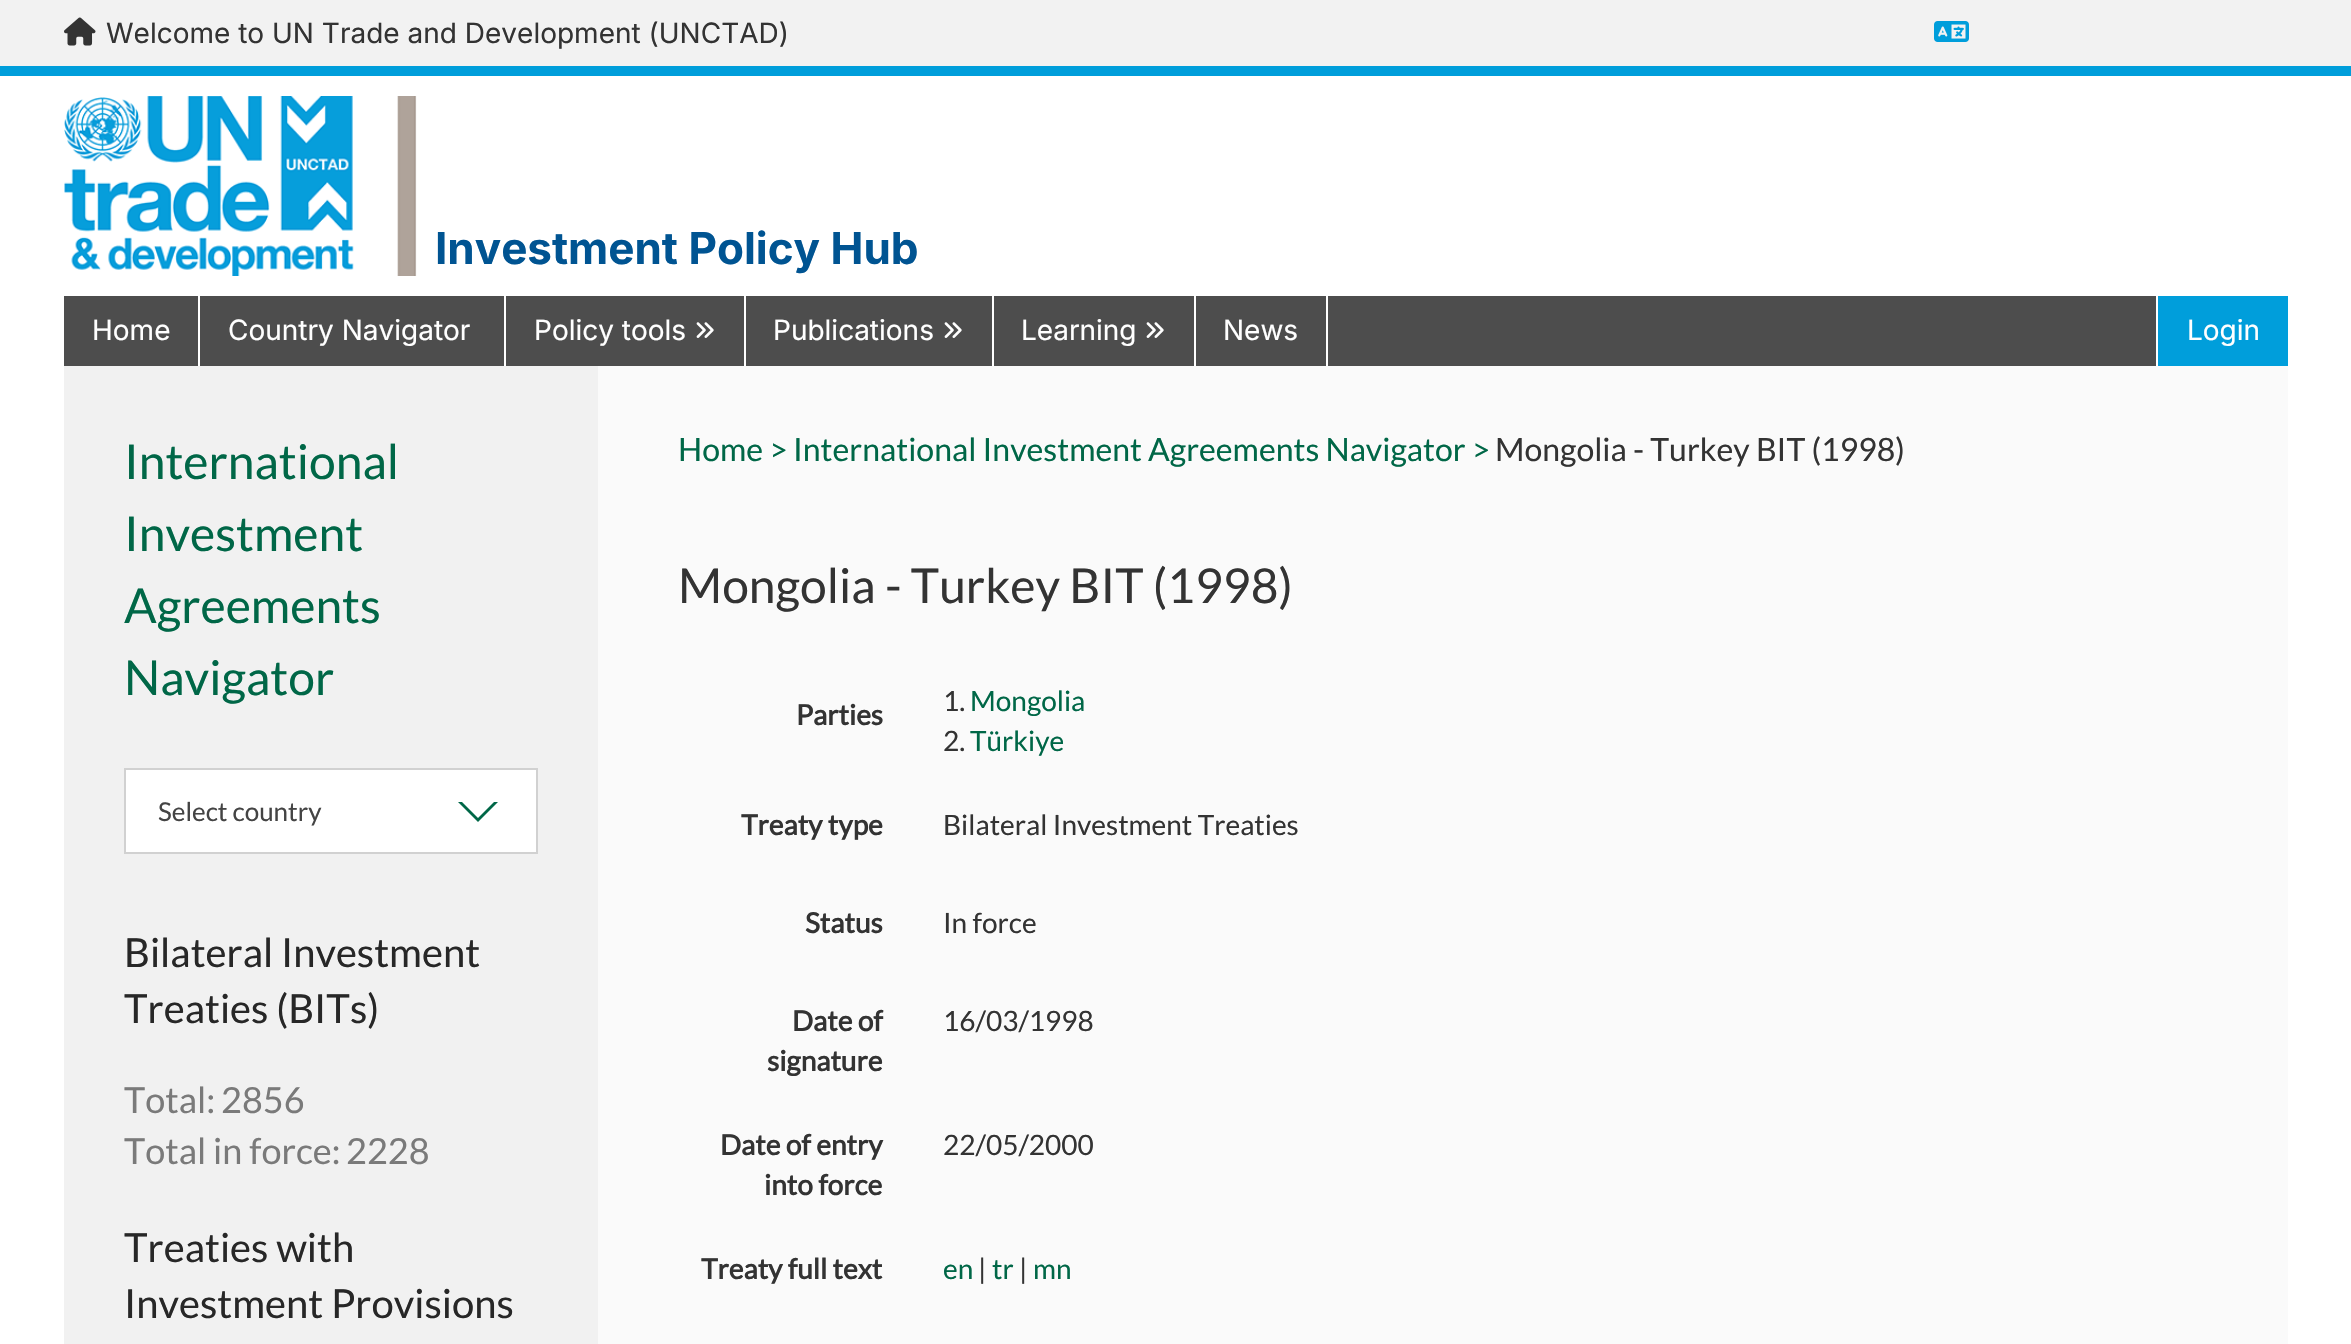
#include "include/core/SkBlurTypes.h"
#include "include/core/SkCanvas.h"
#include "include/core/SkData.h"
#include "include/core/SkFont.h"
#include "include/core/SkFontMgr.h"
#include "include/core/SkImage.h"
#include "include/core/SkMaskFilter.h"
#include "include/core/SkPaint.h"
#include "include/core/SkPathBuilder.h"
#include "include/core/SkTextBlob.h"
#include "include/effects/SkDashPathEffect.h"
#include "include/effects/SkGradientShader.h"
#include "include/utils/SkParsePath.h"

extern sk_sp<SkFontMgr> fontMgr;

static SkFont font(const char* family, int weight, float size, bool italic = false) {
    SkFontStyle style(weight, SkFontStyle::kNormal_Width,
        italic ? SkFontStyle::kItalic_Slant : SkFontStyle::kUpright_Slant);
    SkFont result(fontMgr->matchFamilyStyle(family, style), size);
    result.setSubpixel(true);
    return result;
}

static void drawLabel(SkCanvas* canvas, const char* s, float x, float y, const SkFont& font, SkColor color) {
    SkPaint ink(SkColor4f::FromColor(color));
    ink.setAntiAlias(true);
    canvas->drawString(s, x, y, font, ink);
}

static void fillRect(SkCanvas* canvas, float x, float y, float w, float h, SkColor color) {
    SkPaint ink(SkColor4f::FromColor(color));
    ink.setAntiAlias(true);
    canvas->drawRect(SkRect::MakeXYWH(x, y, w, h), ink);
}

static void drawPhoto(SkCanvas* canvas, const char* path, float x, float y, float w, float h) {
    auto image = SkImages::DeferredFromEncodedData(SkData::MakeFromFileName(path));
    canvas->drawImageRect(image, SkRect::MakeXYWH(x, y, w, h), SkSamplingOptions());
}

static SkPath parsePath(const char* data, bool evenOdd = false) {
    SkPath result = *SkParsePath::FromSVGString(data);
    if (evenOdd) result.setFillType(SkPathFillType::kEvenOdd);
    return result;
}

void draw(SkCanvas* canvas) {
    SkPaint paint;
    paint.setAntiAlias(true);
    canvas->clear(0xFFFFFFFF);
    fillRect(canvas, 0, 0, 2351, 66, 0xFFF2F2F2);
    fillRect(canvas, 0, 66, 2351, 10, 0xFF009EDB);
    drawPhoto(canvas, "assets/img1.png", 64, 17, 32, 29);
    SkFont font1 = font("Inter", 400, 28);
    drawLabel(canvas, "Welcome to UN Trade and Development (UNCTAD)", 106, 43, font1, 0xFF333333);
    drawPhoto(canvas, "assets/img2.png", 1934, 21, 35, 21);
    drawPhoto(canvas, "assets/img3.png", 64, 96, 353, 180);
    SkFont font2 = font("Inter", 700, 44);
    drawLabel(canvas, "Investment Policy Hub", 435, 264, font2, 0xFF005492);
    fillRect(canvas, 64, 296, 2092, 70, 0xFF4D4D4D);
    fillRect(canvas, 198, 296, 2, 70, 0xFFFFFFFF);
    drawLabel(canvas, "Home", 92, 340, font1, 0xFFFFFFFF);
    fillRect(canvas, 504, 296, 2, 70, 0xFFFFFFFF);
    drawLabel(canvas, "Country Navigator", 228, 340, font1, 0xFFFFFFFF);
    fillRect(canvas, 744, 296, 2, 70, 0xFFFFFFFF);
    drawLabel(canvas, "Policy tools", 534, 340, font1, 0xFFFFFFFF);
    drawPhoto(canvas, "assets/img4.png", 696, 322, 18, 16);
    fillRect(canvas, 992, 296, 2, 70, 0xFFFFFFFF);
    drawLabel(canvas, "Publications", 773, 340, font1, 0xFFFFFFFF);
    drawPhoto(canvas, "assets/img4.png", 944, 322, 18, 16);
    fillRect(canvas, 1194, 296, 2, 70, 0xFFFFFFFF);
    drawLabel(canvas, "Learning", 1021, 340, font1, 0xFFFFFFFF);
    drawPhoto(canvas, "assets/img4.png", 1146, 322, 18, 16);
    fillRect(canvas, 1326, 296, 2, 70, 0xFFFFFFFF);
    drawLabel(canvas, "News", 1223, 340, font1, 0xFFFFFFFF);
    fillRect(canvas, 2158, 296, 130, 70, 0xFF009EDB);
    drawLabel(canvas, "Login", 2187, 340, font1, 0xFFFFFFFF);
    fillRect(canvas, 64, 366, 534, 978, 0xFFF1F1F1);
    SkFont font3 = font("Lato", 400, 48);
    drawLabel(canvas, "International", 124, 479, font3, 0xFF006747);
    drawLabel(canvas, "Investment", 124, 551, font3, 0xFF006747);
    drawLabel(canvas, "Agreements", 124, 623, font3, 0xFF006747);
    drawLabel(canvas, "Navigator", 124, 695, font3, 0xFF006747);
    paint.setColor(0xFFFFFFFF);
    canvas->drawRect(SkRect::MakeXYWH(125, 769, 412, 84), paint);
    paint.setStroke(true);
    paint.setStrokeWidth(2);
    paint.setColor(0xFFD1D1D1);
    canvas->drawRect(SkRect::MakeXYWH(125, 769, 412, 84), paint);
    SkFont font4 = font("Lato", 400, 26);
    drawLabel(canvas, "Select country", 158, 821, font4, 0xFF444444);
    paint.setStroke(false);
    paint.setColor(0xFF006747);
    canvas->drawPath(parsePath("M458 802H498L478 822Z"), paint);
    paint.setColor(0xFFFFFFFF);
    canvas->drawPath(parsePath("M462 802H494L478 818Z"), paint);
    SkFont font5 = font("Lato", 400, 40);
    drawLabel(canvas, "Bilateral Investment", 124, 967, font5, 0xFF272727);
    drawLabel(canvas, "Treaties (BITs)", 124, 1023, font5, 0xFF272727);
    SkFont font6 = font("Lato", 400, 36);
    drawLabel(canvas, "Total:", 124, 1113, font6, 0xFF7A7A7A);
    drawLabel(canvas, "2856", 221, 1113, font6, 0xFF7A7A7A);
    drawLabel(canvas, "Total in force:", 124, 1164, font6, 0xFF7A7A7A);
    drawLabel(canvas, "2228", 346, 1164, font6, 0xFF7A7A7A);
    drawLabel(canvas, "Treaties with", 124, 1262, font5, 0xFF272727);
    drawLabel(canvas, "Investment Provisions", 124, 1318, font5, 0xFF272727);
    fillRect(canvas, 598, 366, 1690, 978, 0xFFFAFAFA);
    SkFont font7 = font("Lato", 400, 32);
    drawLabel(canvas, "Home >", 678, 461, font7, 0xFF006747);
    drawLabel(canvas, "International Investment Agreements Navigator >", 793, 461, font7, 0xFF006747);
    drawLabel(canvas, "Mongolia - Turkey BIT (1998)", 1495, 461, font7, 0xFF333333);
    drawLabel(canvas, "Mongolia - Turkey BIT (1998)", 678, 603, font3, 0xFF333333);
    SkFont font8 = font("Lato", 700, 28);
    drawLabel(canvas, "Parties", 796, 725, font8, 0xFF333333);
    SkFont font9 = font("Lato", 400, 28);
    drawLabel(canvas, "1.", 943, 711, font9, 0xFF333333);
    drawLabel(canvas, "Mongolia", 970, 711, font9, 0xFF006747);
    drawLabel(canvas, "2.", 943, 751, font9, 0xFF333333);
    drawLabel(canvas, "Türkiye", 970, 751, font9, 0xFF006747);
    drawLabel(canvas, "Treaty type", 741, 835, font8, 0xFF333333);
    drawLabel(canvas, "Bilateral Investment Treaties", 943, 835, font9, 0xFF333333);
    drawLabel(canvas, "Status", 805, 933, font8, 0xFF333333);
    drawLabel(canvas, "In force", 943, 933, font9, 0xFF333333);
    drawLabel(canvas, "Date of", 792, 1031, font8, 0xFF333333);
    drawLabel(canvas, "signature", 767, 1071, font8, 0xFF333333);
    drawLabel(canvas, "16/03/1998", 943, 1031, font9, 0xFF333333);
    drawLabel(canvas, "Date of entry", 720, 1155, font8, 0xFF333333);
    drawLabel(canvas, "into force", 764, 1195, font8, 0xFF333333);
    drawLabel(canvas, "22/05/2000", 943, 1155, font9, 0xFF333333);
    drawLabel(canvas, "Treaty full text", 701, 1279, font8, 0xFF333333);
    drawLabel(canvas, "en", 943, 1279, font9, 0xFF006747);
    drawLabel(canvas, "|", 978, 1279, font9, 0xFF333333);
    drawLabel(canvas, "tr", 992, 1279, font9, 0xFF006747);
    drawLabel(canvas, "|", 1019, 1279, font9, 0xFF333333);
    drawLabel(canvas, "mn", 1033, 1279, font9, 0xFF006747);
}
